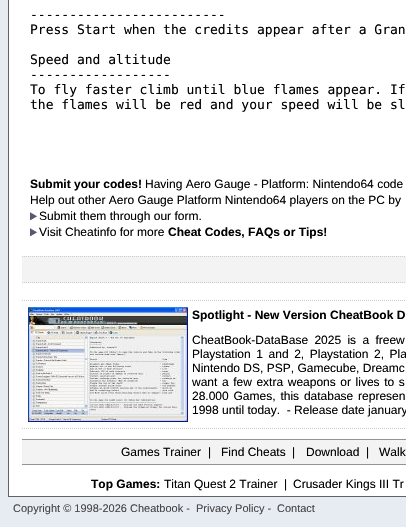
#include "include/core/SkBlurTypes.h"
#include "include/core/SkCanvas.h"
#include "include/core/SkData.h"
#include "include/core/SkFont.h"
#include "include/core/SkFontMgr.h"
#include "include/core/SkImage.h"
#include "include/core/SkMaskFilter.h"
#include "include/core/SkPaint.h"
#include "include/core/SkPathBuilder.h"
#include "include/core/SkTextBlob.h"
#include "include/effects/SkDashPathEffect.h"
#include "include/effects/SkGradientShader.h"
#include "include/utils/SkParsePath.h"

extern sk_sp<SkFontMgr> fontMgr;

static SkFont font(const char* family, int weight, float size, bool italic = false) {
    SkFontStyle style(weight, SkFontStyle::kNormal_Width,
        italic ? SkFontStyle::kItalic_Slant : SkFontStyle::kUpright_Slant);
    SkFont result(fontMgr->matchFamilyStyle(family, style), size);
    result.setSubpixel(true);
    return result;
}

static void drawLabel(SkCanvas* canvas, const char* s, float x, float y, const SkFont& font, SkColor color) {
    SkPaint ink(SkColor4f::FromColor(color));
    ink.setAntiAlias(true);
    canvas->drawString(s, x, y, font, ink);
}

static void drawTracked(SkCanvas* canvas, const char* s, float x, float y, const SkFont& font, const SkPaint& ink, float letter, float word) {
    std::vector<SkGlyphID> glyphs(font.countText(s, strlen(s), SkTextEncoding::kUTF8));
    std::vector<float> xs(glyphs.size());
    font.textToGlyphs(s, strlen(s), SkTextEncoding::kUTF8, glyphs);
    font.getXPos(glyphs, xs, x);
    float extra = 0;
    for (size_t i = 0; i < glyphs.size(); i++) {
        xs[i] += extra;
        extra += letter + word * (glyphs[i] == font.unicharToGlyph(' '));
    }
    canvas->drawTextBlob(SkTextBlob::MakeFromPosHGlyphs(glyphs, xs, y, font), 0, 0, ink);
}

static void fillRect(SkCanvas* canvas, float x, float y, float w, float h, SkColor color) {
    SkPaint ink(SkColor4f::FromColor(color));
    ink.setAntiAlias(true);
    canvas->drawRect(SkRect::MakeXYWH(x, y, w, h), ink);
}

static void drawPhoto(SkCanvas* canvas, const char* path, float x, float y, float w, float h) {
    auto image = SkImages::DeferredFromEncodedData(SkData::MakeFromFileName(path));
    canvas->drawImageRect(image, SkRect::MakeXYWH(x, y, w, h), SkSamplingOptions());
}

static SkPath parsePath(const char* data, bool evenOdd = false) {
    SkPath result = *SkParsePath::FromSVGString(data);
    if (evenOdd) result.setFillType(SkPathFillType::kEvenOdd);
    return result;
}

void draw(SkCanvas* canvas) {
    SkPaint paint;
    paint.setAntiAlias(true);
    canvas->clear(0xFFE7EBF2);
    paint.setColor(0xFFFFFFFF);
    canvas->drawRect(SkRect::MakeXYWH(8.5f, -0.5f, 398, 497), paint);
    paint.setStroke(true);
    paint.setStrokeWidth(1);
    paint.setColor(0xFF636363);
    canvas->drawRect(SkRect::MakeXYWH(8.5f, -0.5f, 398, 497), paint);
    SkFont font1 = font("DejaVu Sans Mono", 400, 13);
    drawLabel(canvas, "-------------------------", 30, 19, font1, 0xFF000000);
    drawLabel(canvas, "Press Start when the credits appear after a Gran", 30, 34, font1, 0xFF000000);
    drawLabel(canvas, "Speed and altitude", 30, 64, font1, 0xFF000000);
    drawLabel(canvas, "------------------", 30, 79, font1, 0xFF000000);
    drawLabel(canvas, "To fly faster climb until blue flames appear. If", 30, 94, font1, 0xFF000000);
    drawLabel(canvas, "the flames will be red and your speed will be sl", 30, 109, font1, 0xFF000000);
    SkFont font2 = font("Liberation Sans", 700, 12);
    drawLabel(canvas, "Submit your codes!", 30, 188, font2, 0xFF000000);
    SkFont font3 = font("Liberation Sans", 400, 12);
    drawLabel(canvas, "Having Aero Gauge - Platform: Nintendo64 code", 145, 188, font3, 0xFF000000);
    drawLabel(canvas, "Help out other Aero Gauge Platform Nintendo64 players on the PC by", 30, 204, font3, 0xFF000000);
    drawPhoto(canvas, "assets/img1.png", 30, 212, 7, 8);
    drawLabel(canvas, "Submit them through our form.", 39, 220, font3, 0xFF000000);
    drawPhoto(canvas, "assets/img1.png", 30, 228, 7, 8);
    drawLabel(canvas, "Visit Cheatinfo for more", 39, 236, font3, 0xFF000000);
    drawLabel(canvas, "Cheat Codes, FAQs or Tips!", 168, 236, font2, 0xFF000000);
    fillRect(canvas, 22, 256, 384, 27, 0xFFF3F3F3);
    paint.setColor(0xFFCCCCCC);
    paint.setPathEffect(SkDashPathEffect::Make({{1, 1}}, 0));
    canvas->drawPath(parsePath("M22 256.5H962"), paint);
    paint.setPathEffect(nullptr);
    paint.setPathEffect(SkDashPathEffect::Make({{1, 1}}, 0));
    canvas->drawPath(parsePath("M22 282.5H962"), paint);
    paint.setPathEffect(nullptr);
    paint.setPathEffect(SkDashPathEffect::Make({{1, 1}}, 0));
    canvas->drawPath(parsePath("M22 300.5H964"), paint);
    paint.setPathEffect(nullptr);
    paint.setPathEffect(SkDashPathEffect::Make({{1, 1}}, 0));
    canvas->drawPath(parsePath("M22 428.5H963"), paint);
    paint.setPathEffect(nullptr);
    drawPhoto(canvas, "assets/img2.png", 28, 307, 160, 115);
    drawLabel(canvas, "Spotlight - New Version CheatBook D", 192, 319, font2, 0xFF000000);
    paint.setStroke(false);
    paint.setColor(0xFF000000);
    drawTracked(canvas, "CheatBook-DataBase 2025 is a freew", 192, 344, font3, paint, 0, 3);
    drawTracked(canvas, "Playstation 1 and 2, Playstation 2, Pla", 192, 358, font3, paint, 0, 2.25f);
    drawLabel(canvas, "Nintendo DS, PSP, Gamecube, Dreamc", 192, 372, font3, 0xFF000000);
    drawTracked(canvas, "want a few extra weapons or lives to s", 192, 386, font3, paint, 0, 1.25f);
    drawTracked(canvas, "28.000 Games, this database represen", 192, 400, font3, paint, 0, 1.5f);
    drawLabel(canvas, "1998 until today.  - Release date january", 192, 414, font3, 0xFF000000);
    fillRect(canvas, 22, 440, 384, 24, 0xFFF3F3F3);
    fillRect(canvas, 22, 439, 384, 1, 0xFF939393);
    fillRect(canvas, 22, 464, 384, 1, 0xFF939393);
    drawLabel(canvas, "Games Trainer", 121, 456, font3, 0xFF000000);
    drawLabel(canvas, "|", 208, 456, font3, 0xFF000000);
    drawLabel(canvas, "Find Cheats", 221, 456, font3, 0xFF000000);
    drawLabel(canvas, "|", 292, 456, font3, 0xFF000000);
    drawLabel(canvas, "Download", 306, 456, font3, 0xFF000000);
    drawLabel(canvas, "|", 366, 456, font3, 0xFF000000);
    drawLabel(canvas, "Walk", 379, 456, font3, 0xFF000000);
    drawLabel(canvas, "Top Games:", 91, 488, font2, 0xFF000000);
    drawLabel(canvas, "Titan Quest 2 Trainer", 164, 488, font3, 0xFF000000);
    drawLabel(canvas, "|", 284, 488, font3, 0xFF000000);
    drawLabel(canvas, "Crusader Kings III Tr", 293, 488, font3, 0xFF000000);
    SkFont font4 = font("Liberation Sans", 400, 11);
    drawLabel(canvas, "Copyright © 1998-2026 Cheatbook -", 13, 512, font4, 0xFF454545);
    drawLabel(canvas, "Privacy Policy -", 196, 512, font4, 0xFF454545);
    drawLabel(canvas, "Contact", 277, 512, font4, 0xFF454545);
}
